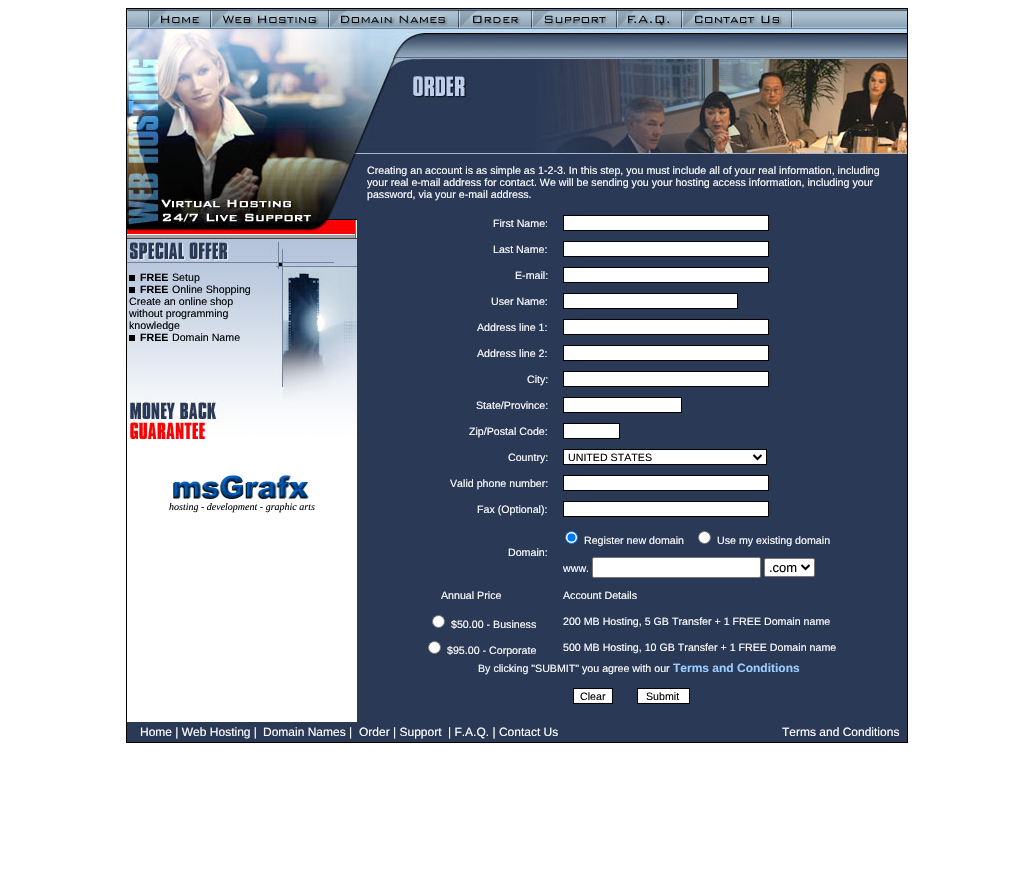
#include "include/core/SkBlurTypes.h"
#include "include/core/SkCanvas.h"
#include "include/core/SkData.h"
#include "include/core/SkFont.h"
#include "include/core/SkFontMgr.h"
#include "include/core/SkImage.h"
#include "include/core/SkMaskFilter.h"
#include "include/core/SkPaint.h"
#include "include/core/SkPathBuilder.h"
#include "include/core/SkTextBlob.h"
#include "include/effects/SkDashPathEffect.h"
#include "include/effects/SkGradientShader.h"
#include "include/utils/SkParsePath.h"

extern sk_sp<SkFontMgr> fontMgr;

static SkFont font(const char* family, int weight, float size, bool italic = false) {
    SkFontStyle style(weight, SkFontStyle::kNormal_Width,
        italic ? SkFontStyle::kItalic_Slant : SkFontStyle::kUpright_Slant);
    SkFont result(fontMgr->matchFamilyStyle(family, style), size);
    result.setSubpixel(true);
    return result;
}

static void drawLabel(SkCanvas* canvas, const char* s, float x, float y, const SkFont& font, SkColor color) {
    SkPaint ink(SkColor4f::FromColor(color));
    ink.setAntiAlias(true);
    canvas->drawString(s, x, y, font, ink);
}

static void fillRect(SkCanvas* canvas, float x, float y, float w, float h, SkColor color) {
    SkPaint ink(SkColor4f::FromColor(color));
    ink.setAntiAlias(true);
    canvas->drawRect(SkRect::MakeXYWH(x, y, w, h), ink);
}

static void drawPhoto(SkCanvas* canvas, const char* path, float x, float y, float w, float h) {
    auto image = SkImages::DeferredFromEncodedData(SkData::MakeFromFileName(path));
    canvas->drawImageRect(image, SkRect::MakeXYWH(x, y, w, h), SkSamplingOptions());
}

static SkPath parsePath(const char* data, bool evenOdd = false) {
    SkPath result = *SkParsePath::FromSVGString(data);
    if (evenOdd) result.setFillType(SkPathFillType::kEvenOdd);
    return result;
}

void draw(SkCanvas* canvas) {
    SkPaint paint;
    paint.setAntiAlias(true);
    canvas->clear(0xFFFFFFFF);
    paint.setStroke(true);
    paint.setStrokeWidth(1);
    paint.setColor(0xFF000000);
    canvas->drawRect(SkRect::MakeXYWH(126.5f, 8.5f, 781, 734), paint);
    drawPhoto(canvas, "assets/img1.png", 127, 9, 22, 20);
    drawPhoto(canvas, "assets/img2.png", 149, 9, 758, 20);
    drawPhoto(canvas, "assets/img3.png", 149, 10, 62, 18);
    drawPhoto(canvas, "assets/img4.png", 211, 10, 118, 18);
    drawPhoto(canvas, "assets/img5.png", 329, 10, 130, 18);
    drawPhoto(canvas, "assets/img6.png", 459, 10, 73, 18);
    drawPhoto(canvas, "assets/img7.png", 532, 10, 85, 18);
    drawPhoto(canvas, "assets/img8.png", 617, 10, 65, 18);
    drawPhoto(canvas, "assets/img9.png", 682, 10, 111, 18);
    drawPhoto(canvas, "assets/img10.png", 127, 29, 202, 210);
    drawPhoto(canvas, "assets/img11.png", 329, 29, 28, 210);
    drawPhoto(canvas, "assets/img12.png", 127, 239, 230, 200);
    fillRect(canvas, 129, 275, 6, 6, 0xFF000000);
    SkFont font1 = font("Liberation Sans", 700, 10.65f);
    drawLabel(canvas, "FREE", 140, 281, font1, 0xFF000000);
    SkFont font2 = font("Liberation Sans", 400, 10.65f);
    drawLabel(canvas, "Setup", 172, 281, font2, 0xFF000000);
    fillRect(canvas, 129, 287, 6, 6, 0xFF000000);
    drawLabel(canvas, "FREE", 140, 293, font1, 0xFF000000);
    drawLabel(canvas, "Online Shopping", 172, 293, font2, 0xFF000000);
    drawLabel(canvas, "Create an online shop", 129, 305, font2, 0xFF000000);
    drawLabel(canvas, "without programming", 129, 317, font2, 0xFF000000);
    drawLabel(canvas, "knowledge", 129, 329, font2, 0xFF000000);
    fillRect(canvas, 129, 335, 6, 6, 0xFF000000);
    drawLabel(canvas, "FREE", 140, 341, font1, 0xFF000000);
    drawLabel(canvas, "Domain Name", 172, 341, font2, 0xFF000000);
    drawPhoto(canvas, "assets/img13.png", 172, 475, 138, 24);
    SkFont font3 = font("Liberation Serif", 400, 10, true);
    drawLabel(canvas, "hosting - development - graphic arts", 169, 510, font3, 0xFF000000);
    fillRect(canvas, 357, 154, 550, 568, 0xFF2A3956);
    drawPhoto(canvas, "assets/img14.png", 357, 29, 550, 30);
    drawPhoto(canvas, "assets/img15.png", 357, 59, 550, 95);
    drawLabel(canvas, "Creating an account is as simple as 1-2-3. In this step, you must include all of your real information, including", 367, 174, font2, 0xFFFFFFFF);
    drawLabel(canvas, "your real e-mail address for contact. We will be sending you your hosting access information, including your", 367, 186, font2, 0xFFFFFFFF);
    drawLabel(canvas, "password, via your e-mail address.", 367, 198, font2, 0xFFFFFFFF);
    drawLabel(canvas, "First Name:", 493, 227, font2, 0xFFFFFFFF);
    paint.setStroke(false);
    paint.setColor(0xFFFFFFFF);
    canvas->drawRect(SkRect::MakeXYWH(563.5f, 215.5f, 205, 15), paint);
    paint.setStroke(true);
    paint.setColor(0xFF000000);
    canvas->drawRect(SkRect::MakeXYWH(563.5f, 215.5f, 205, 15), paint);
    drawLabel(canvas, "Last Name:", 493, 253, font2, 0xFFFFFFFF);
    paint.setStroke(false);
    paint.setColor(0xFFFFFFFF);
    canvas->drawRect(SkRect::MakeXYWH(563.5f, 241.5f, 205, 15), paint);
    paint.setStroke(true);
    paint.setColor(0xFF000000);
    canvas->drawRect(SkRect::MakeXYWH(563.5f, 241.5f, 205, 15), paint);
    drawLabel(canvas, "E-mail:", 515, 279, font2, 0xFFFFFFFF);
    paint.setStroke(false);
    paint.setColor(0xFFFFFFFF);
    canvas->drawRect(SkRect::MakeXYWH(563.5f, 267.5f, 205, 15), paint);
    paint.setStroke(true);
    paint.setColor(0xFF000000);
    canvas->drawRect(SkRect::MakeXYWH(563.5f, 267.5f, 205, 15), paint);
    drawLabel(canvas, "User Name:", 491, 305, font2, 0xFFFFFFFF);
    paint.setStroke(false);
    paint.setColor(0xFFFFFFFF);
    canvas->drawRect(SkRect::MakeXYWH(563.5f, 293.5f, 174, 15), paint);
    paint.setStroke(true);
    paint.setColor(0xFF000000);
    canvas->drawRect(SkRect::MakeXYWH(563.5f, 293.5f, 174, 15), paint);
    drawLabel(canvas, "Address line 1:", 477, 331, font2, 0xFFFFFFFF);
    paint.setStroke(false);
    paint.setColor(0xFFFFFFFF);
    canvas->drawRect(SkRect::MakeXYWH(563.5f, 319.5f, 205, 15), paint);
    paint.setStroke(true);
    paint.setColor(0xFF000000);
    canvas->drawRect(SkRect::MakeXYWH(563.5f, 319.5f, 205, 15), paint);
    drawLabel(canvas, "Address line 2:", 477, 357, font2, 0xFFFFFFFF);
    paint.setStroke(false);
    paint.setColor(0xFFFFFFFF);
    canvas->drawRect(SkRect::MakeXYWH(563.5f, 345.5f, 205, 15), paint);
    paint.setStroke(true);
    paint.setColor(0xFF000000);
    canvas->drawRect(SkRect::MakeXYWH(563.5f, 345.5f, 205, 15), paint);
    drawLabel(canvas, "City:", 527, 383, font2, 0xFFFFFFFF);
    paint.setStroke(false);
    paint.setColor(0xFFFFFFFF);
    canvas->drawRect(SkRect::MakeXYWH(563.5f, 371.5f, 205, 15), paint);
    paint.setStroke(true);
    paint.setColor(0xFF000000);
    canvas->drawRect(SkRect::MakeXYWH(563.5f, 371.5f, 205, 15), paint);
    drawLabel(canvas, "State/Province:", 476, 409, font2, 0xFFFFFFFF);
    paint.setStroke(false);
    paint.setColor(0xFFFFFFFF);
    canvas->drawRect(SkRect::MakeXYWH(563.5f, 397.5f, 118, 15), paint);
    paint.setStroke(true);
    paint.setColor(0xFF000000);
    canvas->drawRect(SkRect::MakeXYWH(563.5f, 397.5f, 118, 15), paint);
    drawLabel(canvas, "Zip/Postal Code:", 469, 435, font2, 0xFFFFFFFF);
    paint.setStroke(false);
    paint.setColor(0xFFFFFFFF);
    canvas->drawRect(SkRect::MakeXYWH(563.5f, 423.5f, 56, 15), paint);
    paint.setStroke(true);
    paint.setColor(0xFF000000);
    canvas->drawRect(SkRect::MakeXYWH(563.5f, 423.5f, 56, 15), paint);
    drawLabel(canvas, "Country:", 508, 461, font2, 0xFFFFFFFF);
    paint.setStroke(false);
    paint.setColor(0xFFFFFFFF);
    canvas->drawRect(SkRect::MakeXYWH(563.5f, 449.5f, 203, 15), paint);
    paint.setStroke(true);
    paint.setColor(0xFF000000);
    canvas->drawRect(SkRect::MakeXYWH(563.5f, 449.5f, 203, 15), paint);
    paint.setStrokeWidth(2);
    canvas->drawPath(parsePath("M753.5 455L757.5 459L761.5 455"), paint);
    drawLabel(canvas, "UNITED STATES", 568, 461, font2, 0xFF000000);
    drawLabel(canvas, "Valid phone number:", 450, 487, font2, 0xFFFFFFFF);
    paint.setStroke(false);
    paint.setColor(0xFFFFFFFF);
    canvas->drawRect(SkRect::MakeXYWH(563.5f, 475.5f, 205, 15), paint);
    paint.setStroke(true);
    paint.setStrokeWidth(1);
    paint.setColor(0xFF000000);
    canvas->drawRect(SkRect::MakeXYWH(563.5f, 475.5f, 205, 15), paint);
    drawLabel(canvas, "Fax (Optional):", 477, 513, font2, 0xFFFFFFFF);
    paint.setStroke(false);
    paint.setColor(0xFFFFFFFF);
    canvas->drawRect(SkRect::MakeXYWH(563.5f, 501.5f, 205, 15), paint);
    paint.setStroke(true);
    paint.setColor(0xFF000000);
    canvas->drawRect(SkRect::MakeXYWH(563.5f, 501.5f, 205, 15), paint);
    drawLabel(canvas, "Domain:", 508, 556, font2, 0xFFFFFFFF);
    paint.setStroke(false);
    paint.setColor(0xFFFFFFFF);
    canvas->drawCircle(571.5f, 537.5f, 6, paint);
    paint.setStroke(true);
    paint.setColor(0xFF0075FF);
    canvas->drawCircle(571.5f, 537.5f, 6, paint);
    paint.setStroke(false);
    canvas->drawCircle(571.5f, 537.5f, 4, paint);
    drawLabel(canvas, "Register new domain", 584, 544, font2, 0xFFFFFFFF);
    paint.setColor(0xFFFFFFFF);
    canvas->drawCircle(704.5f, 537.5f, 6, paint);
    paint.setStroke(true);
    paint.setColor(0xFF767676);
    canvas->drawCircle(704.5f, 537.5f, 6, paint);
    drawLabel(canvas, "Use my existing domain", 717, 544, font2, 0xFFFFFFFF);
    drawLabel(canvas, "www.", 563, 572, font2, 0xFFFFFFFF);
    paint.setStroke(false);
    paint.setColor(0xFFFFFFFF);
    canvas->drawRoundRect(SkRect::MakeXYWH(592.5f, 557.5f, 168, 20), 1.5f, 1.5f, paint);
    paint.setStroke(true);
    paint.setColor(0xFF767676);
    canvas->drawRoundRect(SkRect::MakeXYWH(592.5f, 557.5f, 168, 20), 1.5f, 1.5f, paint);
    paint.setStroke(false);
    paint.setColor(0xFFFFFFFF);
    canvas->drawRoundRect(SkRect::MakeXYWH(764.5f, 558.5f, 50, 18), 1.5f, 1.5f, paint);
    paint.setStroke(true);
    paint.setColor(0xFF767676);
    canvas->drawRoundRect(SkRect::MakeXYWH(764.5f, 558.5f, 50, 18), 1.5f, 1.5f, paint);
    paint.setStrokeWidth(2);
    paint.setColor(0xFF000000);
    canvas->drawPath(parsePath("M801.5 565L805.5 569L809.5 565"), paint);
    SkFont font4 = font("Liberation Sans", 400, 13);
    drawLabel(canvas, ".com", 769, 572, font4, 0xFF000000);
    drawLabel(canvas, "Annual Price", 441, 599, font2, 0xFFFFFFFF);
    drawLabel(canvas, "Account Details", 563, 599, font2, 0xFFFFFFFF);
    paint.setStroke(false);
    paint.setColor(0xFFFFFFFF);
    canvas->drawCircle(438.5f, 621.5f, 6, paint);
    paint.setStroke(true);
    paint.setStrokeWidth(1);
    paint.setColor(0xFF767676);
    canvas->drawCircle(438.5f, 621.5f, 6, paint);
    drawLabel(canvas, "$50.00 - Business", 451, 628, font2, 0xFFFFFFFF);
    drawLabel(canvas, "200 MB Hosting, 5 GB Transfer + 1 FREE Domain name", 563, 625, font2, 0xFFFFFFFF);
    paint.setStroke(false);
    paint.setColor(0xFFFFFFFF);
    canvas->drawCircle(434.5f, 647.5f, 6, paint);
    paint.setStroke(true);
    paint.setColor(0xFF767676);
    canvas->drawCircle(434.5f, 647.5f, 6, paint);
    drawLabel(canvas, "$95.00 - Corporate", 447, 654, font2, 0xFFFFFFFF);
    drawLabel(canvas, "500 MB Hosting, 10 GB Transfer + 1 FREE Domain name", 563, 651, font2, 0xFFFFFFFF);
    drawLabel(canvas, "By clicking \"SUBMIT\" you agree with our", 478, 672, font2, 0xFFFFFFFF);
    SkFont font5 = font("Liberation Sans", 700, 12);
    drawLabel(canvas, "Terms and Conditions", 673, 672, font5, 0xFF99CCFF);
    paint.setStroke(false);
    paint.setColor(0xFFFFFFFF);
    canvas->drawRect(SkRect::MakeXYWH(573.5f, 688.5f, 39, 15), paint);
    paint.setStroke(true);
    paint.setColor(0xFF000000);
    canvas->drawRect(SkRect::MakeXYWH(573.5f, 688.5f, 39, 15), paint);
    drawLabel(canvas, "Clear", 580, 700, font2, 0xFF000000);
    paint.setStroke(false);
    paint.setColor(0xFFFFFFFF);
    canvas->drawRect(SkRect::MakeXYWH(637.5f, 688.5f, 52, 15), paint);
    paint.setStroke(true);
    paint.setColor(0xFF000000);
    canvas->drawRect(SkRect::MakeXYWH(637.5f, 688.5f, 52, 15), paint);
    drawLabel(canvas, "Submit", 646, 700, font2, 0xFF000000);
    fillRect(canvas, 127, 722, 780, 20, 0xFF2A3956);
    SkFont font6 = font("Liberation Sans", 400, 12);
    drawLabel(canvas, "Home | Web Hosting |", 140, 736, font6, 0xFFFFFFFF);
    drawLabel(canvas, "Domain Names |", 263, 736, font6, 0xFFFFFFFF);
    drawLabel(canvas, "Order | Support", 359, 736, font6, 0xFFFFFFFF);
    drawLabel(canvas, "| F.A.Q. | Contact Us", 448, 736, font6, 0xFFFFFFFF);
    drawLabel(canvas, "Terms and Conditions", 782, 736, font6, 0xFFFFFFFF);
}
